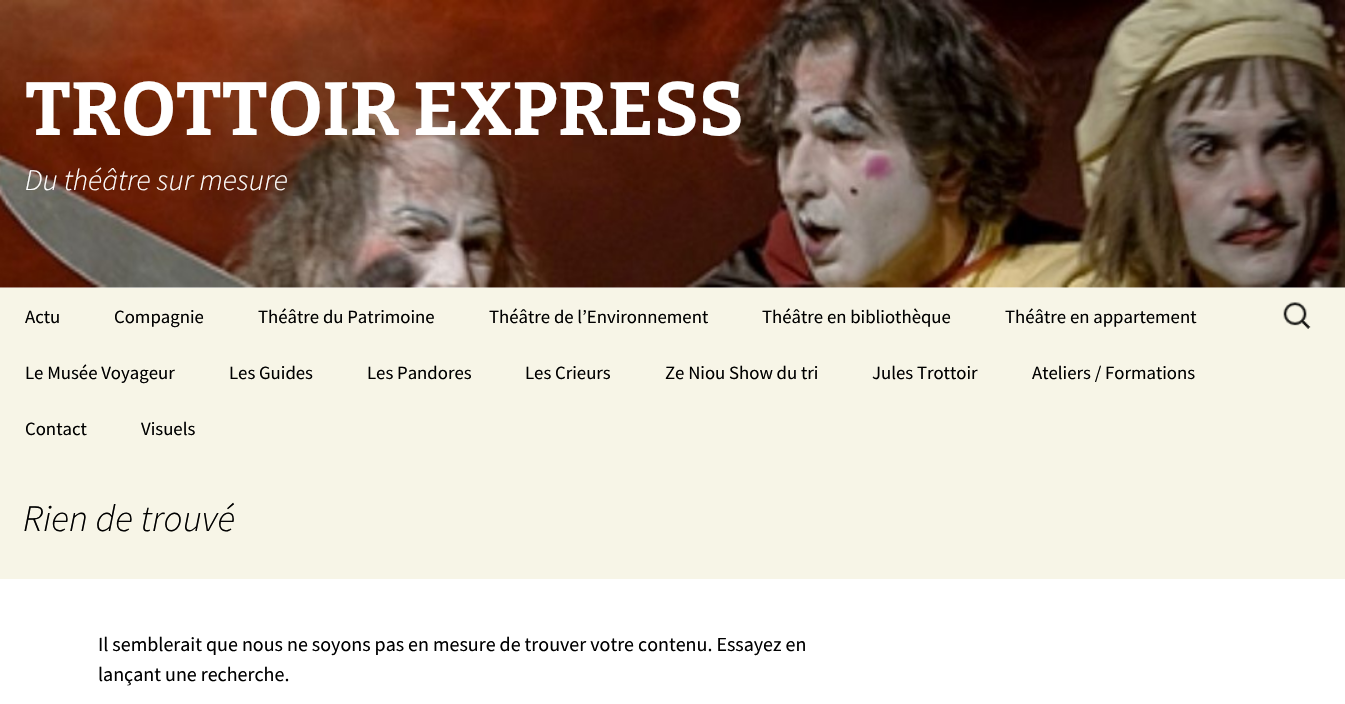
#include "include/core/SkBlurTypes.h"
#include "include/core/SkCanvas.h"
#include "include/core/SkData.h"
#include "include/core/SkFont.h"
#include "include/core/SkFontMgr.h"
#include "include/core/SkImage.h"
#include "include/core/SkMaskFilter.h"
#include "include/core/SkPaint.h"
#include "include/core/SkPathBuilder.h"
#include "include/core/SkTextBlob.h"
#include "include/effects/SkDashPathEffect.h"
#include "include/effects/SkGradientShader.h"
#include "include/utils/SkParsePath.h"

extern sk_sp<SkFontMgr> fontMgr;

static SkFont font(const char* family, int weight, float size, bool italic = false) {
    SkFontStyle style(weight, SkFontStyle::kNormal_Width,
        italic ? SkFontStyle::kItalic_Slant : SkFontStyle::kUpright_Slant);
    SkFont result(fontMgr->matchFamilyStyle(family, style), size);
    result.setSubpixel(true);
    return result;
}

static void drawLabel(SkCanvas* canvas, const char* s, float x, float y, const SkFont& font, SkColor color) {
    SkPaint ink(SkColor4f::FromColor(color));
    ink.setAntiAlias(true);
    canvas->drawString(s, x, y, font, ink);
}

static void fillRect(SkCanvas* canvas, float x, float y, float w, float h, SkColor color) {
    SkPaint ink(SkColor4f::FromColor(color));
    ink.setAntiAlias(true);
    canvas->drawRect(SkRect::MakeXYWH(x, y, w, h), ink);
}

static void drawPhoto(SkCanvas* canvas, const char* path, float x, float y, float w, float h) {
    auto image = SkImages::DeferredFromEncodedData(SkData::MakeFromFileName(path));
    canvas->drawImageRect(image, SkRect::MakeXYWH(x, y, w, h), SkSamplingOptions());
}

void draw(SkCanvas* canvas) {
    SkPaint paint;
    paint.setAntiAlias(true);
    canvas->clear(0xFFFFFFFF);
    drawPhoto(canvas, "assets/img1.png", 0, 0, 1345, 288);
    SkFont font1 = font("Bitter", 700, 75);
    drawLabel(canvas, "TROTTOIR EXPRESS", 25, 135, font1, 0xFFFFFFFF);
    SkFont font2 = font("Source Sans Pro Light", 300, 30, true);
    drawLabel(canvas, "Du théâtre sur mesure", 25, 190, font2, 0xFFFFFFFF);
    fillRect(canvas, 0, 288, 1345, 291, 0xFFF7F5E7);
    SkFont font3 = font("Source Sans Pro", 400, 18.75f);
    drawLabel(canvas, "Actu", 25, 323, font3, 0xFF000000);
    drawLabel(canvas, "Compagnie", 114, 323, font3, 0xFF000000);
    drawLabel(canvas, "Théâtre du Patrimoine", 258, 323, font3, 0xFF000000);
    drawLabel(canvas, "Théâtre de l’Environnement", 489, 323, font3, 0xFF000000);
    drawLabel(canvas, "Théâtre en bibliothèque", 762, 323, font3, 0xFF000000);
    drawLabel(canvas, "Théâtre en appartement", 1005, 323, font3, 0xFF000000);
    drawLabel(canvas, "Le Musée Voyageur", 25, 379, font3, 0xFF000000);
    drawLabel(canvas, "Les Guides", 229, 379, font3, 0xFF000000);
    drawLabel(canvas, "Les Pandores", 367, 379, font3, 0xFF000000);
    drawLabel(canvas, "Les Crieurs", 525, 379, font3, 0xFF000000);
    drawLabel(canvas, "Ze Niou Show du tri", 665, 379, font3, 0xFF000000);
    drawLabel(canvas, "Jules Trottoir", 872, 379, font3, 0xFF000000);
    drawLabel(canvas, "Ateliers / Formations", 1032, 379, font3, 0xFF000000);
    drawLabel(canvas, "Contact", 25, 435, font3, 0xFF000000);
    drawLabel(canvas, "Visuels", 141, 435, font3, 0xFF000000);
    drawPhoto(canvas, "assets/img2.png", 1283, 302, 28, 27);
    SkFont font4 = font("Source Sans Pro Light", 300, 37.5f, true);
    drawLabel(canvas, "Rien de trouvé", 23, 531, font4, 0xFF000000);
    SkFont font5 = font("Source Sans Pro", 400, 20);
    drawLabel(canvas, "Il semblerait que nous ne soyons pas en mesure de trouver votre contenu. Essayez en", 98, 651, font5, 0xFF000000);
    drawLabel(canvas, "lançant une recherche.", 98, 681, font5, 0xFF000000);
}
